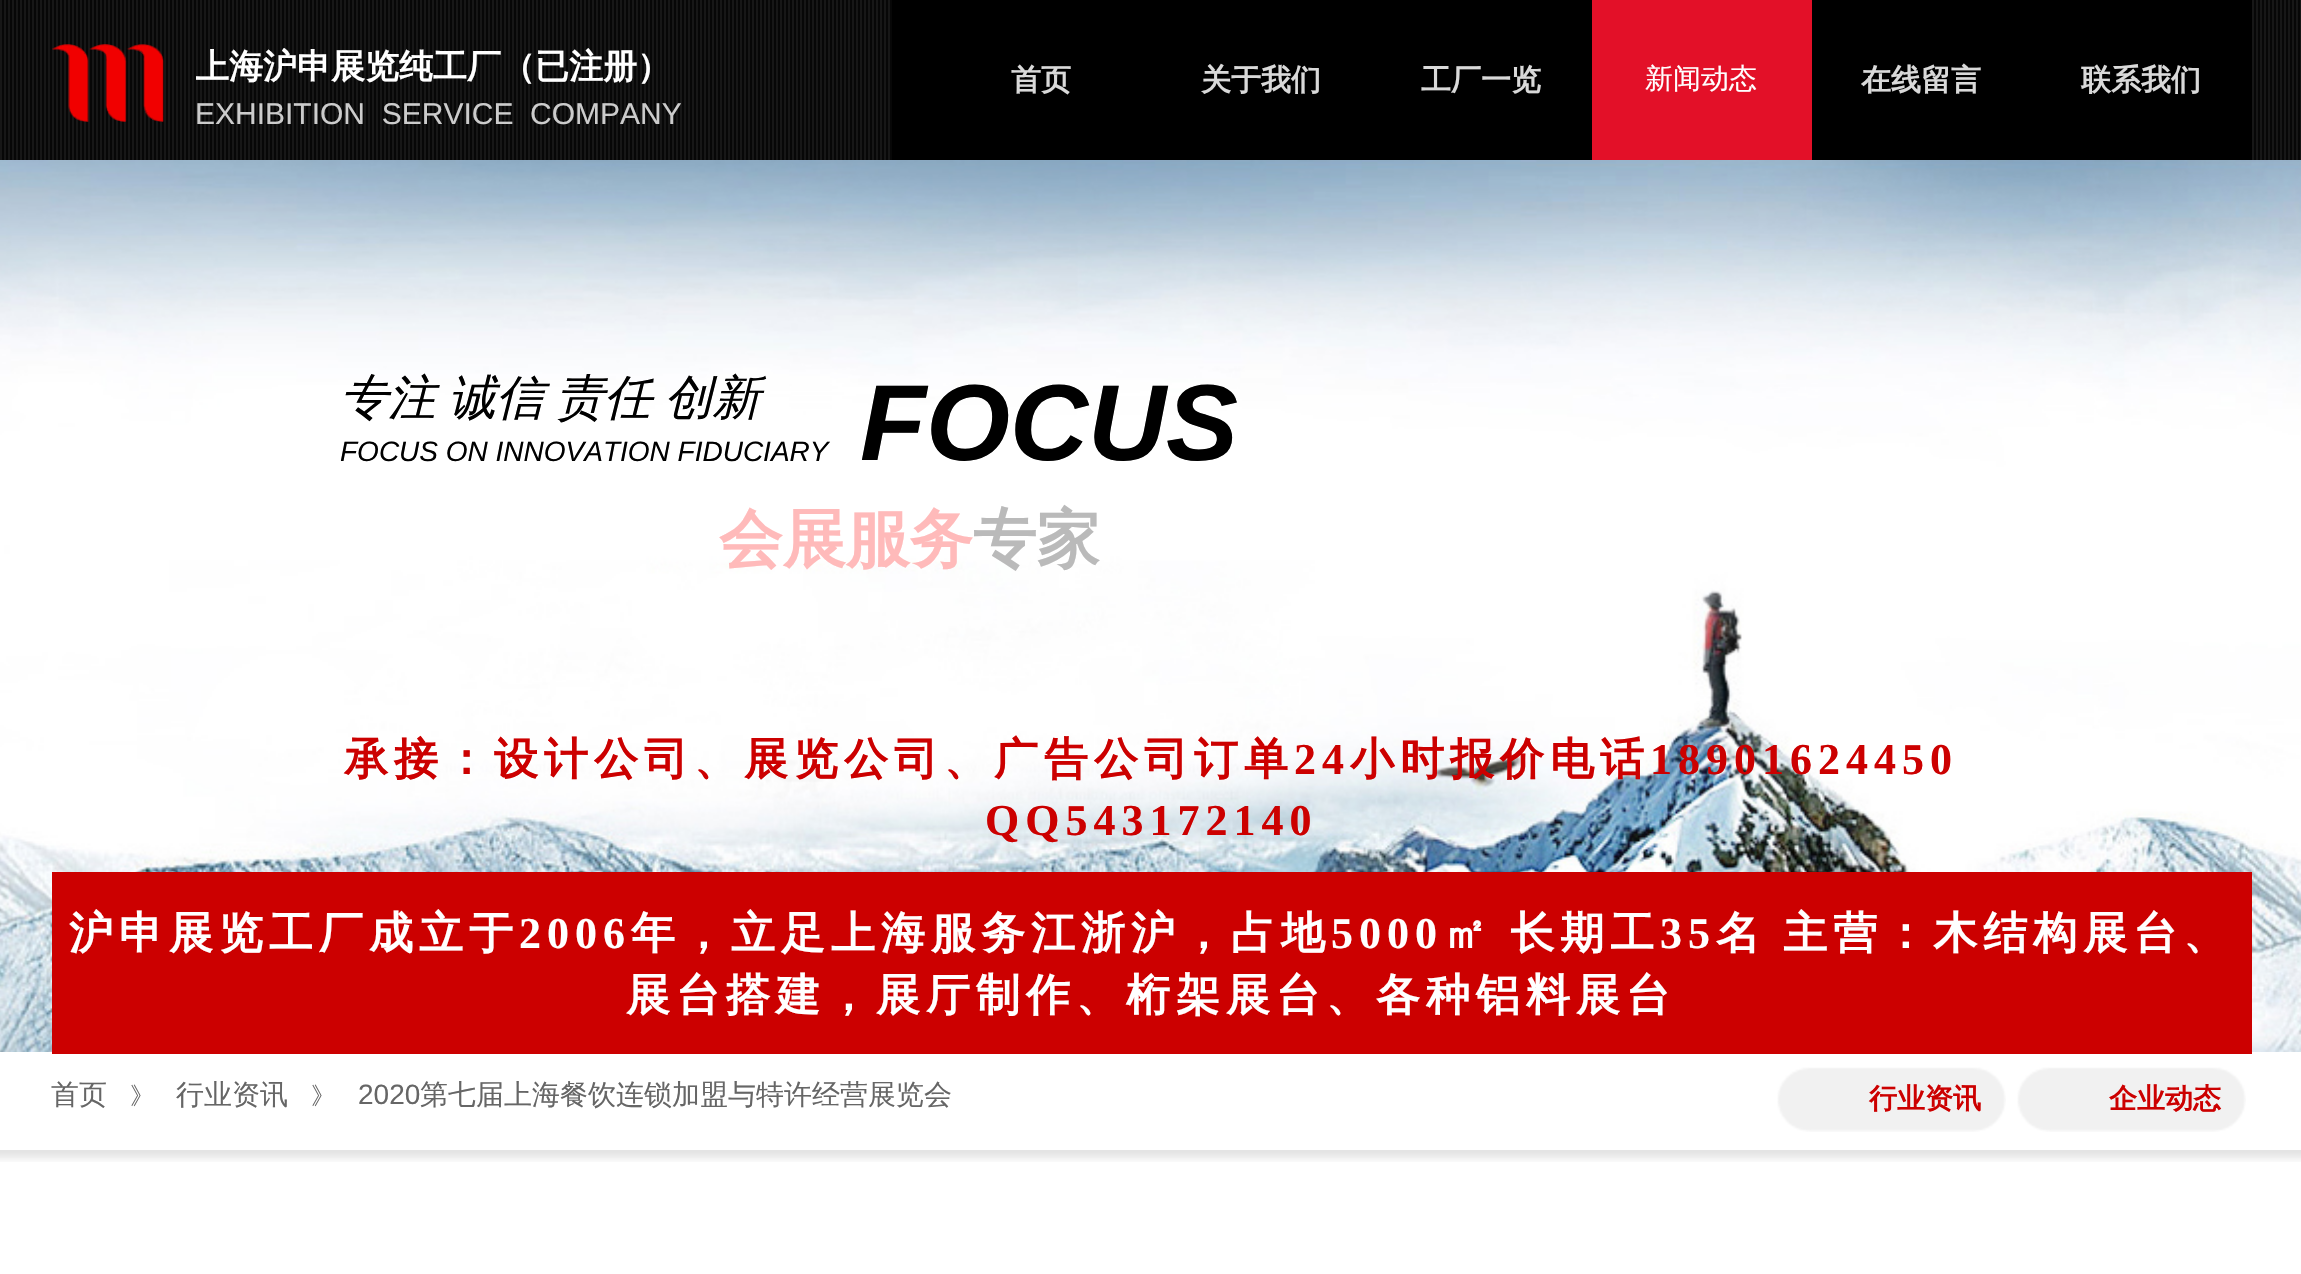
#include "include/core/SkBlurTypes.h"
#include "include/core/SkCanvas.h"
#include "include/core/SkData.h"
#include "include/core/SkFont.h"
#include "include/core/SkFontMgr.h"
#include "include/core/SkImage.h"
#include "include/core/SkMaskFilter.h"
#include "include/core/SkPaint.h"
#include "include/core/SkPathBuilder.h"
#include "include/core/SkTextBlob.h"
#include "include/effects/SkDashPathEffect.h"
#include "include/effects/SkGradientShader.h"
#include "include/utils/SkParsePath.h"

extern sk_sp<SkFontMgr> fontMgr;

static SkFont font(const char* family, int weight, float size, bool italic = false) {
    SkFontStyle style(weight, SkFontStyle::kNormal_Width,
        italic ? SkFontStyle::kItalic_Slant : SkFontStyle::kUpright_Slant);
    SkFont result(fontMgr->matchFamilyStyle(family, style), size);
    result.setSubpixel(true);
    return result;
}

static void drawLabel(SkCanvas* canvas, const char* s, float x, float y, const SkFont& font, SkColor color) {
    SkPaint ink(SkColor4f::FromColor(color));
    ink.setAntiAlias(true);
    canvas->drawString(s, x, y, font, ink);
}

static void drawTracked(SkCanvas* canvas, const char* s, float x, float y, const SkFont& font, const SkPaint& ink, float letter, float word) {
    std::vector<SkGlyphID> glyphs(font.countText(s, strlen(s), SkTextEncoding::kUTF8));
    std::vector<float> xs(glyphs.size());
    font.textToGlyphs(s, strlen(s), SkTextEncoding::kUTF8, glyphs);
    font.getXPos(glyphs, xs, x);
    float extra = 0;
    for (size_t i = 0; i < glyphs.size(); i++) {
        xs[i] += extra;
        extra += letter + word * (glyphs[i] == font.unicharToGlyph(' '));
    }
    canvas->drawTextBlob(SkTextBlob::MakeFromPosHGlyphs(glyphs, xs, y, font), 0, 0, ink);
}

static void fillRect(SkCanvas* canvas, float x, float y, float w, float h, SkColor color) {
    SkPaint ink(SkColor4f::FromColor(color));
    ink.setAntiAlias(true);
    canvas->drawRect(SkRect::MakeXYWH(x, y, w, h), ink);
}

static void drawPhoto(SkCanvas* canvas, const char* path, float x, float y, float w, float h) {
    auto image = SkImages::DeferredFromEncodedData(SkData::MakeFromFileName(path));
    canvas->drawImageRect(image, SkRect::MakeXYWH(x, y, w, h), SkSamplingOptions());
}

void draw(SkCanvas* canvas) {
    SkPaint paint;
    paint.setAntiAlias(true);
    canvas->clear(0xFFFFFFFF);
    drawPhoto(canvas, "assets/img1.png", 0, 0, 2301, 160);
    drawPhoto(canvas, "assets/img2.png", 52, 44, 112, 78);
    canvas->save();
    canvas->clipRect(SkRect::MakeXYWH(196, 44, 494, 98));
    SkFont font1 = font("WenQuanYi Zen Hei", 700, 34);
    drawLabel(canvas, "上海沪申展览纯工厂（已注册）", 195, 78, font1, 0xFFFFFFFF);
    canvas->restore();
    SkFont font2 = font("Liberation Sans", 400, 30);
    drawLabel(canvas, "EXHIBITION  SERVICE  COMPANY", 195, 124, font2, 0xFFCCCCCC);
    fillRect(canvas, 892, 0, 1360, 160, 0xFF000000);
    SkFont font3 = font("WenQuanYi Zen Hei", 700, 30);
    drawLabel(canvas, "首页", 1011, 90, font3, 0xFFD9D9D9);
    drawLabel(canvas, "关于我们", 1201, 90, font3, 0xFFD9D9D9);
    drawLabel(canvas, "工厂一览", 1421, 90, font3, 0xFFD9D9D9);
    fillRect(canvas, 1592, 0, 220, 160, 0xFFE31028);
    SkFont font4 = font("WenQuanYi Zen Hei", 500, 28);
    drawLabel(canvas, "新闻动态", 1645, 88, font4, 0xFFFFFFFF);
    drawLabel(canvas, "在线留言", 1861, 90, font3, 0xFFD9D9D9);
    drawLabel(canvas, "联系我们", 2081, 90, font3, 0xFFD9D9D9);
    drawPhoto(canvas, "assets/img3.png", 0, 160, 2301, 892);
    SkFont font5 = font("WenQuanYi Zen Hei", 500, 48, true);
    drawLabel(canvas, "专注", 340, 414, font5, 0xFF000000);
    drawLabel(canvas, "诚信", 448, 414, font5, 0xFF000000);
    paint.setColor(0xFF000000);
    drawTracked(canvas, "责任 创新", 556, 414, font5, paint, 0, -2);
    SkFont font6 = font("Liberation Sans", 400, 28, true);
    drawLabel(canvas, "FOCUS ON INNOVATION FIDUCIARY", 340, 461, font6, 0xFF000000);
    SkFont font7 = font("Liberation Sans", 700, 108, true);
    drawLabel(canvas, "FOCUS", 860, 460, font7, 0xFF000000);
    SkFont font8 = font("WenQuanYi Zen Hei", 700, 63.5f);
    drawLabel(canvas, "会展服务", 719, 561, font8, 0xFFFFBABA);
    drawLabel(canvas, "专家", 973, 561, font8, 0xFFBABABA);
    SkFont font9 = font("WenQuanYi Zen Hei", 700, 44);
    paint.setColor(0xFFCC0000);
    drawTracked(canvas, "承接：设计公司、展览公司、广告公司订单", 344, 774, font9, paint, 6, 0);
    SkFont font10 = font("Liberation Serif", 700, 44);
    drawTracked(canvas, "24", 1294, 774, font10, paint, 6, 0);
    drawTracked(canvas, "小时报价电话", 1350, 774, font9, paint, 6, 0);
    drawTracked(canvas, "18901624450", 1650, 774, font10, paint, 6, 0);
    drawTracked(canvas, "QQ543172140", 985, 835, font10, paint, 6, 0);
    fillRect(canvas, 52, 872, 2200, 182, 0xFFCC0000);
    paint.setColor(0xFFFFFFFF);
    drawTracked(canvas, "沪申展览工厂成立于", 69, 948, font9, paint, 6, 0);
    drawTracked(canvas, "2006", 519, 948, font10, paint, 6, 0);
    drawTracked(canvas, "年，立足上海服务江浙沪，占地", 631, 948, font9, paint, 6, 0);
    drawTracked(canvas, "5000", 1331, 948, font10, paint, 6, 0);
    drawTracked(canvas, "㎡ 长期工", 1443, 948, font9, paint, 6, -2);
    drawTracked(canvas, "35", 1660, 948, font10, paint, 6, 0);
    drawTracked(canvas, "名 主营：木结构展台、", 1716, 948, font9, paint, 6, -2);
    drawTracked(canvas, "展台搭建，展厅制作、桁架展台、各种铝料展台", 626, 1010, font9, paint, 6, 0);
    drawLabel(canvas, "首页", 51, 1104, font4, 0xFF666666);
    SkFont font11 = font("WenQuanYi Zen Hei", 500, 24);
    drawLabel(canvas, "》", 130, 1104, font11, 0xFF666666);
    drawLabel(canvas, "行业资讯", 176, 1104, font4, 0xFF666666);
    drawLabel(canvas, "》", 311, 1104, font11, 0xFF666666);
    SkFont font12 = font("Liberation Sans", 400, 28);
    drawLabel(canvas, "2020", 358, 1104, font12, 0xFF666666);
    drawLabel(canvas, "第七届上海餐饮连锁加盟与特许经营展览会", 420, 1104, font4, 0xFF666666);
    drawPhoto(canvas, "assets/img4.png", 1777, 1067, 229, 65);
    SkFont font13 = font("WenQuanYi Zen Hei", 700, 28);
    drawLabel(canvas, "行业资讯", 1869, 1108, font13, 0xFFCC0000);
    drawPhoto(canvas, "assets/img4.png", 2017, 1067, 229, 65);
    drawLabel(canvas, "企业动态", 2109, 1108, font13, 0xFFCC0000);
    drawPhoto(canvas, "assets/img5.png", 0, 1150, 2301, 12);
}
